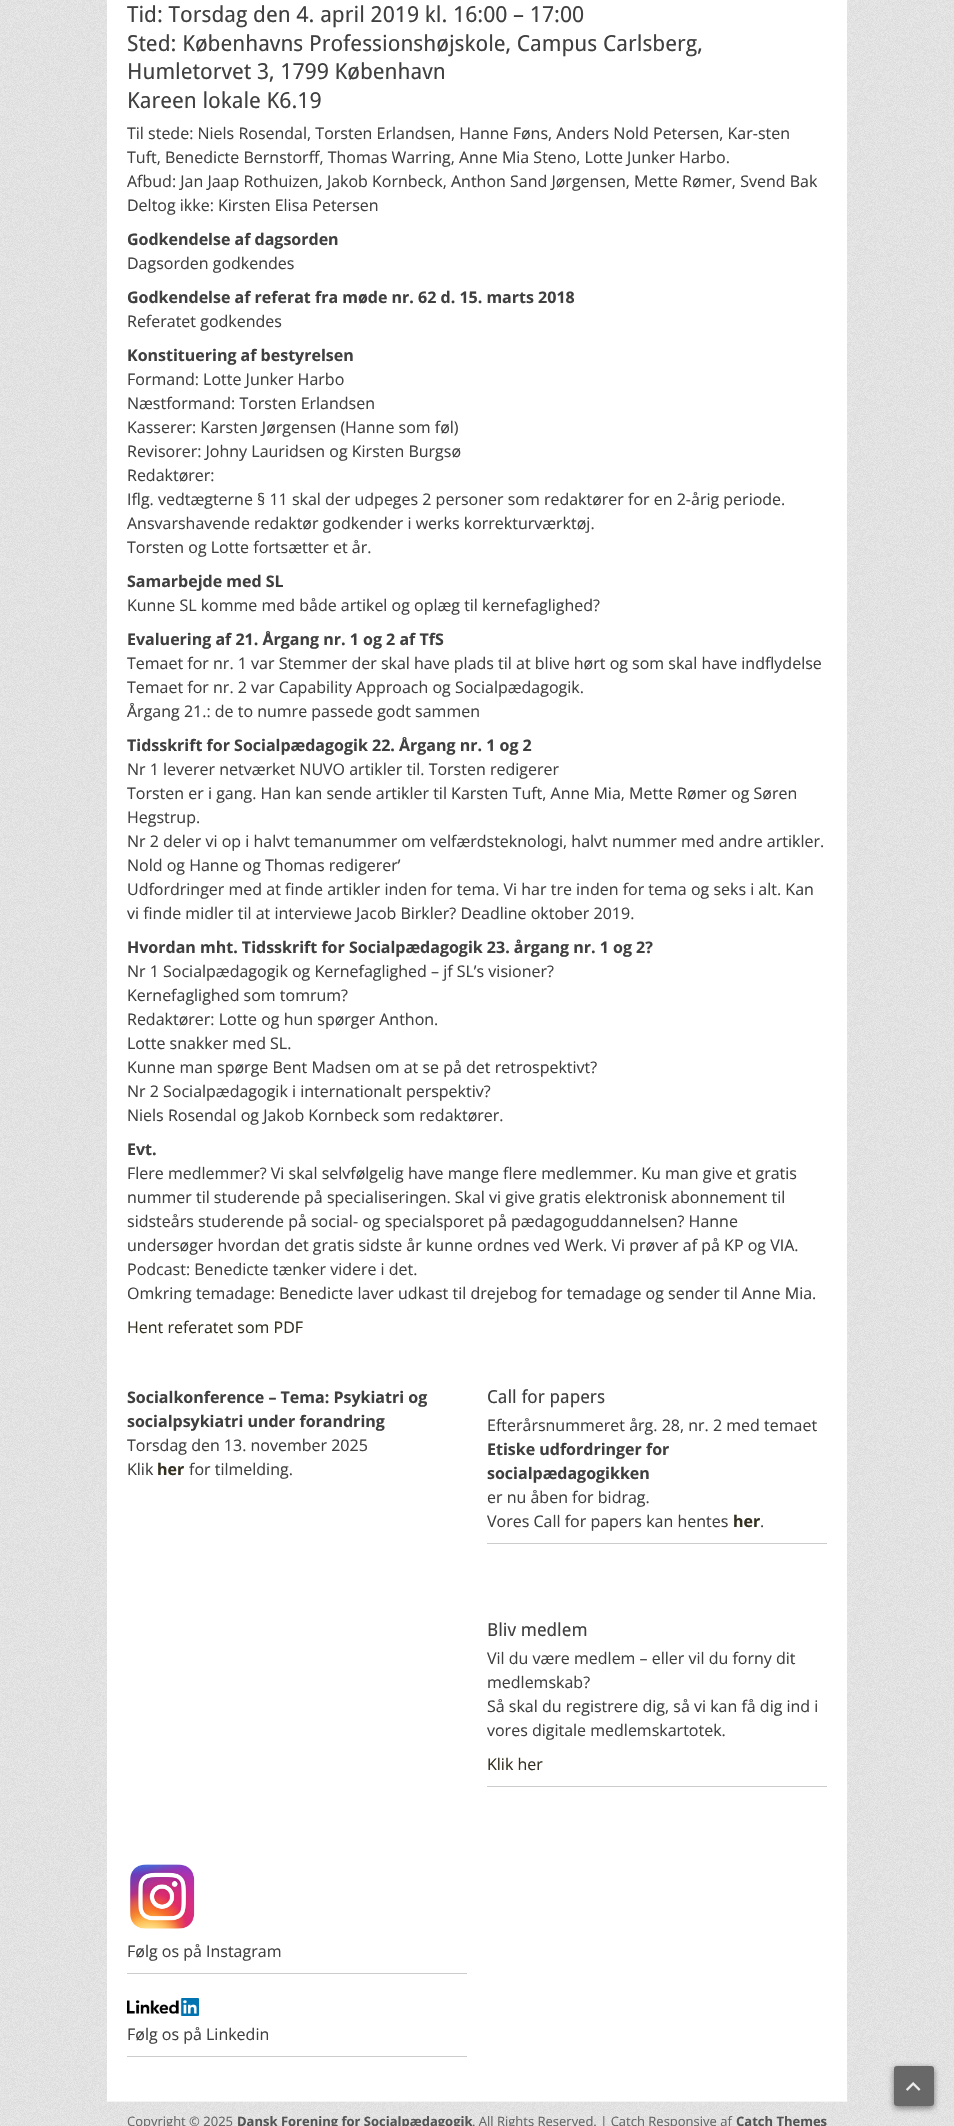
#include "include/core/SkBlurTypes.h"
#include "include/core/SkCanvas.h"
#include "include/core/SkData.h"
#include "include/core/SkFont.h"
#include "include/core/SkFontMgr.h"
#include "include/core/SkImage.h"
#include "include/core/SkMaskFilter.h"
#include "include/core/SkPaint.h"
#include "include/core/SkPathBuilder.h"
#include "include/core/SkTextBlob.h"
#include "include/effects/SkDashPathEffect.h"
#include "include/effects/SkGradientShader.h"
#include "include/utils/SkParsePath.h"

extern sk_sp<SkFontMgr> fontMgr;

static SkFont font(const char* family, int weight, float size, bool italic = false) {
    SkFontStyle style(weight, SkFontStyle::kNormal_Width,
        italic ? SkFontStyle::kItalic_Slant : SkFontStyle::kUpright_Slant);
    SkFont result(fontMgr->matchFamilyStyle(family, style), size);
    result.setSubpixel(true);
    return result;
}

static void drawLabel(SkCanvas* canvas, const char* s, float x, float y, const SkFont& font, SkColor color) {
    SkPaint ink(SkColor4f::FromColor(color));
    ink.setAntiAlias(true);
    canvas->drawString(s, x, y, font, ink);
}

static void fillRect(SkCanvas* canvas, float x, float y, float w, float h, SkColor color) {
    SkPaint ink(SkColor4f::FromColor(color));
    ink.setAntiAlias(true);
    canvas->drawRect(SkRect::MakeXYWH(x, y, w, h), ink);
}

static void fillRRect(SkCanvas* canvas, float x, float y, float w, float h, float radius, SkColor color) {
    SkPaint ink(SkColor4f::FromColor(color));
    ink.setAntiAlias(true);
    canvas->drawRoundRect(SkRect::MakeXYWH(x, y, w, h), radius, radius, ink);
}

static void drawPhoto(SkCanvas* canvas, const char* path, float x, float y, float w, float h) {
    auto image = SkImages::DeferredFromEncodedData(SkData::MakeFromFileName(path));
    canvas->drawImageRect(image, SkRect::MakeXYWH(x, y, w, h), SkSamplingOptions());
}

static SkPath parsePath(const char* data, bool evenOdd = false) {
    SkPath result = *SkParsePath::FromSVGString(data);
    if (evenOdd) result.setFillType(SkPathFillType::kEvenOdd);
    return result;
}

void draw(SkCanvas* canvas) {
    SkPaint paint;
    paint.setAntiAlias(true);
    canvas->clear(0xFFFFFFFF);
    drawPhoto(canvas, "assets/img1.png", 0, 0, 954, 2126);
    fillRect(canvas, 107, 0, 740, 2101, 0xFFFFFFFF);
    SkFont font1 = font("Droid Sans", 400, 22);
    drawLabel(canvas, "Tid: Torsdag den 4. april 2019 kl. 16:00 – 17:00", 127, 22, font1, 0xFF404040);
    drawLabel(canvas, "Sted: Københavns Professionshøjskole, Campus Carlsberg,", 127, 51, font1, 0xFF404040);
    drawLabel(canvas, "Humletorvet 3, 1799 København", 127, 79, font1, 0xFF404040);
    drawLabel(canvas, "Kareen lokale K6.19", 127, 108, font1, 0xFF404040);
    SkFont font2 = font("Open Sans", 400, 16);
    drawLabel(canvas, "Til stede: Niels Rosendal, Torsten Erlandsen, Hanne Føns, Anders Nold Petersen, Kar-sten", 127, 139, font2, 0xFF404040);
    drawLabel(canvas, "Tuft, Benedicte Bernstorff, Thomas Warring, Anne Mia Steno, Lotte Junker Harbo.", 127, 163, font2, 0xFF404040);
    drawLabel(canvas, "Afbud: Jan Jaap Rothuizen, Jakob Kornbeck, Anthon Sand Jørgensen, Mette Rømer, Svend Bak", 127, 187, font2, 0xFF404040);
    drawLabel(canvas, "Deltog ikke: Kirsten Elisa Petersen", 127, 211, font2, 0xFF404040);
    SkFont font3 = font("Open Sans", 700, 16);
    drawLabel(canvas, "Godkendelse af dagsorden", 127, 245, font3, 0xFF404040);
    drawLabel(canvas, "Dagsorden godkendes", 127, 269, font2, 0xFF404040);
    drawLabel(canvas, "Godkendelse af referat fra møde nr. 62 d. 15. marts 2018", 127, 303, font3, 0xFF404040);
    drawLabel(canvas, "Referatet godkendes", 127, 327, font2, 0xFF404040);
    drawLabel(canvas, "Konstituering af bestyrelsen", 127, 361, font3, 0xFF404040);
    drawLabel(canvas, "Formand: Lotte Junker Harbo", 127, 385, font2, 0xFF404040);
    drawLabel(canvas, "Næstformand: Torsten Erlandsen", 127, 409, font2, 0xFF404040);
    drawLabel(canvas, "Kasserer: Karsten Jørgensen (Hanne som føl)", 127, 433, font2, 0xFF404040);
    drawLabel(canvas, "Revisorer: Johny Lauridsen og Kirsten Burgsø", 127, 457, font2, 0xFF404040);
    drawLabel(canvas, "Redaktører:", 127, 481, font2, 0xFF404040);
    drawLabel(canvas, "Iflg. vedtægterne § 11 skal der udpeges 2 personer som redaktører for en 2-årig periode.", 127, 505, font2, 0xFF404040);
    drawLabel(canvas, "Ansvarshavende redaktør godkender i werks korrekturværktøj.", 127, 529, font2, 0xFF404040);
    drawLabel(canvas, "Torsten og Lotte fortsætter et år.", 127, 553, font2, 0xFF404040);
    drawLabel(canvas, "Samarbejde med SL", 127, 587, font3, 0xFF404040);
    drawLabel(canvas, "Kunne SL komme med både artikel og oplæg til kernefaglighed?", 127, 611, font2, 0xFF404040);
    drawLabel(canvas, "Evaluering af 21. Årgang nr. 1 og 2 af TfS", 127, 645, font3, 0xFF404040);
    drawLabel(canvas, "Temaet for nr. 1 var Stemmer der skal have plads til at blive hørt og som skal have indflydelse", 127, 669, font2, 0xFF404040);
    drawLabel(canvas, "Temaet for nr. 2 var Capability Approach og Socialpædagogik.", 127, 693, font2, 0xFF404040);
    drawLabel(canvas, "Årgang 21.: de to numre passede godt sammen", 127, 717, font2, 0xFF404040);
    drawLabel(canvas, "Tidsskrift for Socialpædagogik 22. Årgang nr. 1 og 2", 127, 751, font3, 0xFF404040);
    drawLabel(canvas, "Nr 1 leverer netværket NUVO artikler til. Torsten redigerer", 127, 775, font2, 0xFF404040);
    drawLabel(canvas, "Torsten er i gang. Han kan sende artikler til Karsten Tuft, Anne Mia, Mette Rømer og Søren", 127, 799, font2, 0xFF404040);
    drawLabel(canvas, "Hegstrup.", 127, 823, font2, 0xFF404040);
    drawLabel(canvas, "Nr 2 deler vi op i halvt temanummer om velfærdsteknologi, halvt nummer med andre artikler.", 127, 847, font2, 0xFF404040);
    drawLabel(canvas, "Nold og Hanne og Thomas redigerer’", 127, 871, font2, 0xFF404040);
    drawLabel(canvas, "Udfordringer med at finde artikler inden for tema. Vi har tre inden for tema og seks i alt. Kan", 127, 895, font2, 0xFF404040);
    drawLabel(canvas, "vi finde midler til at interviewe Jacob Birkler? Deadline oktober 2019.", 127, 919, font2, 0xFF404040);
    drawLabel(canvas, "Hvordan mht. Tidsskrift for Socialpædagogik 23. årgang nr. 1 og 2?", 127, 953, font3, 0xFF404040);
    drawLabel(canvas, "Nr 1 Socialpædagogik og Kernefaglighed – jf SL’s visioner?", 127, 977, font2, 0xFF404040);
    drawLabel(canvas, "Kernefaglighed som tomrum?", 127, 1001, font2, 0xFF404040);
    drawLabel(canvas, "Redaktører: Lotte og hun spørger Anthon.", 127, 1025, font2, 0xFF404040);
    drawLabel(canvas, "Lotte snakker med SL.", 127, 1049, font2, 0xFF404040);
    drawLabel(canvas, "Kunne man spørge Bent Madsen om at se på det retrospektivt?", 127, 1073, font2, 0xFF404040);
    drawLabel(canvas, "Nr 2 Socialpædagogik i internationalt perspektiv?", 127, 1097, font2, 0xFF404040);
    drawLabel(canvas, "Niels Rosendal og Jakob Kornbeck som redaktører.", 127, 1121, font2, 0xFF404040);
    drawLabel(canvas, "Evt.", 127, 1155, font3, 0xFF404040);
    drawLabel(canvas, "Flere medlemmer? Vi skal selvfølgelig have mange flere medlemmer. Ku man give et gratis", 127, 1179, font2, 0xFF404040);
    drawLabel(canvas, "nummer til studerende på specialiseringen. Skal vi give gratis elektronisk abonnement til", 127, 1203, font2, 0xFF404040);
    drawLabel(canvas, "sidsteårs studerende på social- og specialsporet på pædagoguddannelsen? Hanne", 127, 1227, font2, 0xFF404040);
    drawLabel(canvas, "undersøger hvordan det gratis sidste år kunne ordnes ved Werk. Vi prøver af på KP og VIA.", 127, 1251, font2, 0xFF404040);
    drawLabel(canvas, "Podcast: Benedicte tænker videre i det.", 127, 1275, font2, 0xFF404040);
    drawLabel(canvas, "Omkring temadage: Benedicte laver udkast til drejebog for temadage og sender til Anne Mia.", 127, 1299, font2, 0xFF404040);
    drawLabel(canvas, "Hent referatet som PDF", 127, 1333, font2, 0xFF343121);
    drawLabel(canvas, "Socialkonference – Tema: Psykiatri og", 127, 1403, font3, 0xFF404040);
    drawLabel(canvas, "socialpsykiatri under forandring", 127, 1427, font3, 0xFF404040);
    drawLabel(canvas, "Torsdag den 13. november 2025", 127, 1451, font2, 0xFF404040);
    drawLabel(canvas, "Klik", 127, 1475, font2, 0xFF404040);
    drawLabel(canvas, "her", 157, 1475, font3, 0xFF343121);
    drawLabel(canvas, "for tilmelding.", 189, 1475, font2, 0xFF404040);
    SkFont font4 = font("Droid Sans", 400, 18);
    drawLabel(canvas, "Call for papers", 487, 1403, font4, 0xFF404040);
    drawLabel(canvas, "Efterårsnummeret årg. 28, nr. 2 med temaet", 487, 1431, font2, 0xFF404040);
    drawLabel(canvas, "Etiske udfordringer for", 487, 1455, font3, 0xFF404040);
    drawLabel(canvas, "socialpædagogikken", 487, 1479, font3, 0xFF404040);
    drawLabel(canvas, "er nu åben for bidrag.", 487, 1503, font2, 0xFF404040);
    drawLabel(canvas, "Vores Call for papers kan hentes", 487, 1527, font2, 0xFF404040);
    drawLabel(canvas, "her", 733, 1527, font3, 0xFF343121);
    drawLabel(canvas, ".", 760, 1527, font2, 0xFF404040);
    fillRect(canvas, 487, 1543, 340, 1, 0xFFCCCCCC);
    drawLabel(canvas, "Bliv medlem", 487, 1636, font4, 0xFF404040);
    drawLabel(canvas, "Vil du være medlem – eller vil du forny dit", 487, 1664, font2, 0xFF404040);
    drawLabel(canvas, "medlemskab?", 487, 1688, font2, 0xFF404040);
    drawLabel(canvas, "Så skal du registrere dig, så vi kan få dig ind i", 487, 1712, font2, 0xFF404040);
    drawLabel(canvas, "vores digitale medlemskartotek.", 487, 1736, font2, 0xFF404040);
    drawLabel(canvas, "Klik her", 487, 1770, font2, 0xFF343121);
    fillRect(canvas, 487, 1786, 340, 1, 0xFFCCCCCC);
    drawPhoto(canvas, "assets/img2.png", 130, 1864, 65, 65);
    drawLabel(canvas, "Følg os på Instagram", 127, 1957, font2, 0xFF404040);
    fillRect(canvas, 127, 1973, 340, 1, 0xFFCCCCCC);
    drawPhoto(canvas, "assets/img3.png", 127, 1998, 72, 18);
    drawLabel(canvas, "Følg os på Linkedin", 127, 2040, font2, 0xFF404040);
    fillRect(canvas, 127, 2056, 340, 1, 0xFFCCCCCC);
    fillRect(canvas, 107, 2101, 740, 1, 0xFFF4F4F4);
    SkFont font5 = font("Open Sans", 400, 13);
    drawLabel(canvas, "Copyright © 2025", 127, 2126, font5, 0xFF666666);
    SkFont font6 = font("Open Sans", 700, 13);
    drawLabel(canvas, "Dansk Forening for Socialpædagogik", 237, 2126, font6, 0xFF555555);
    drawLabel(canvas, ". All Rights Reserved. | Catch Responsive af", 472, 2126, font5, 0xFF666666);
    drawLabel(canvas, "Catch Themes", 736, 2126, font6, 0xFF555555);
    canvas->save();
    canvas->clipPath(parsePath("M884 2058H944V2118H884ZM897 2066H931C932.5 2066 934 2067.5 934 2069V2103C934 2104.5 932.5 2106 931 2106H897C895.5 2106 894 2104.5 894 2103V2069C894 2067.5 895.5 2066 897 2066Z", true), true);
    paint.setColor(0x7D000000);
    paint.setMaskFilter(SkMaskFilter::MakeBlur(kNormal_SkBlurStyle, 3));
    canvas->drawRoundRect(SkRect::MakeXYWH(894, 2068, 40, 40), 3, 3, paint);
    paint.setMaskFilter(nullptr);
    canvas->restore();
    fillRRect(canvas, 894, 2066, 40, 40, 3, 0xFC666666);
    drawPhoto(canvas, "assets/img4.png", 906, 2082, 15, 9);
}
